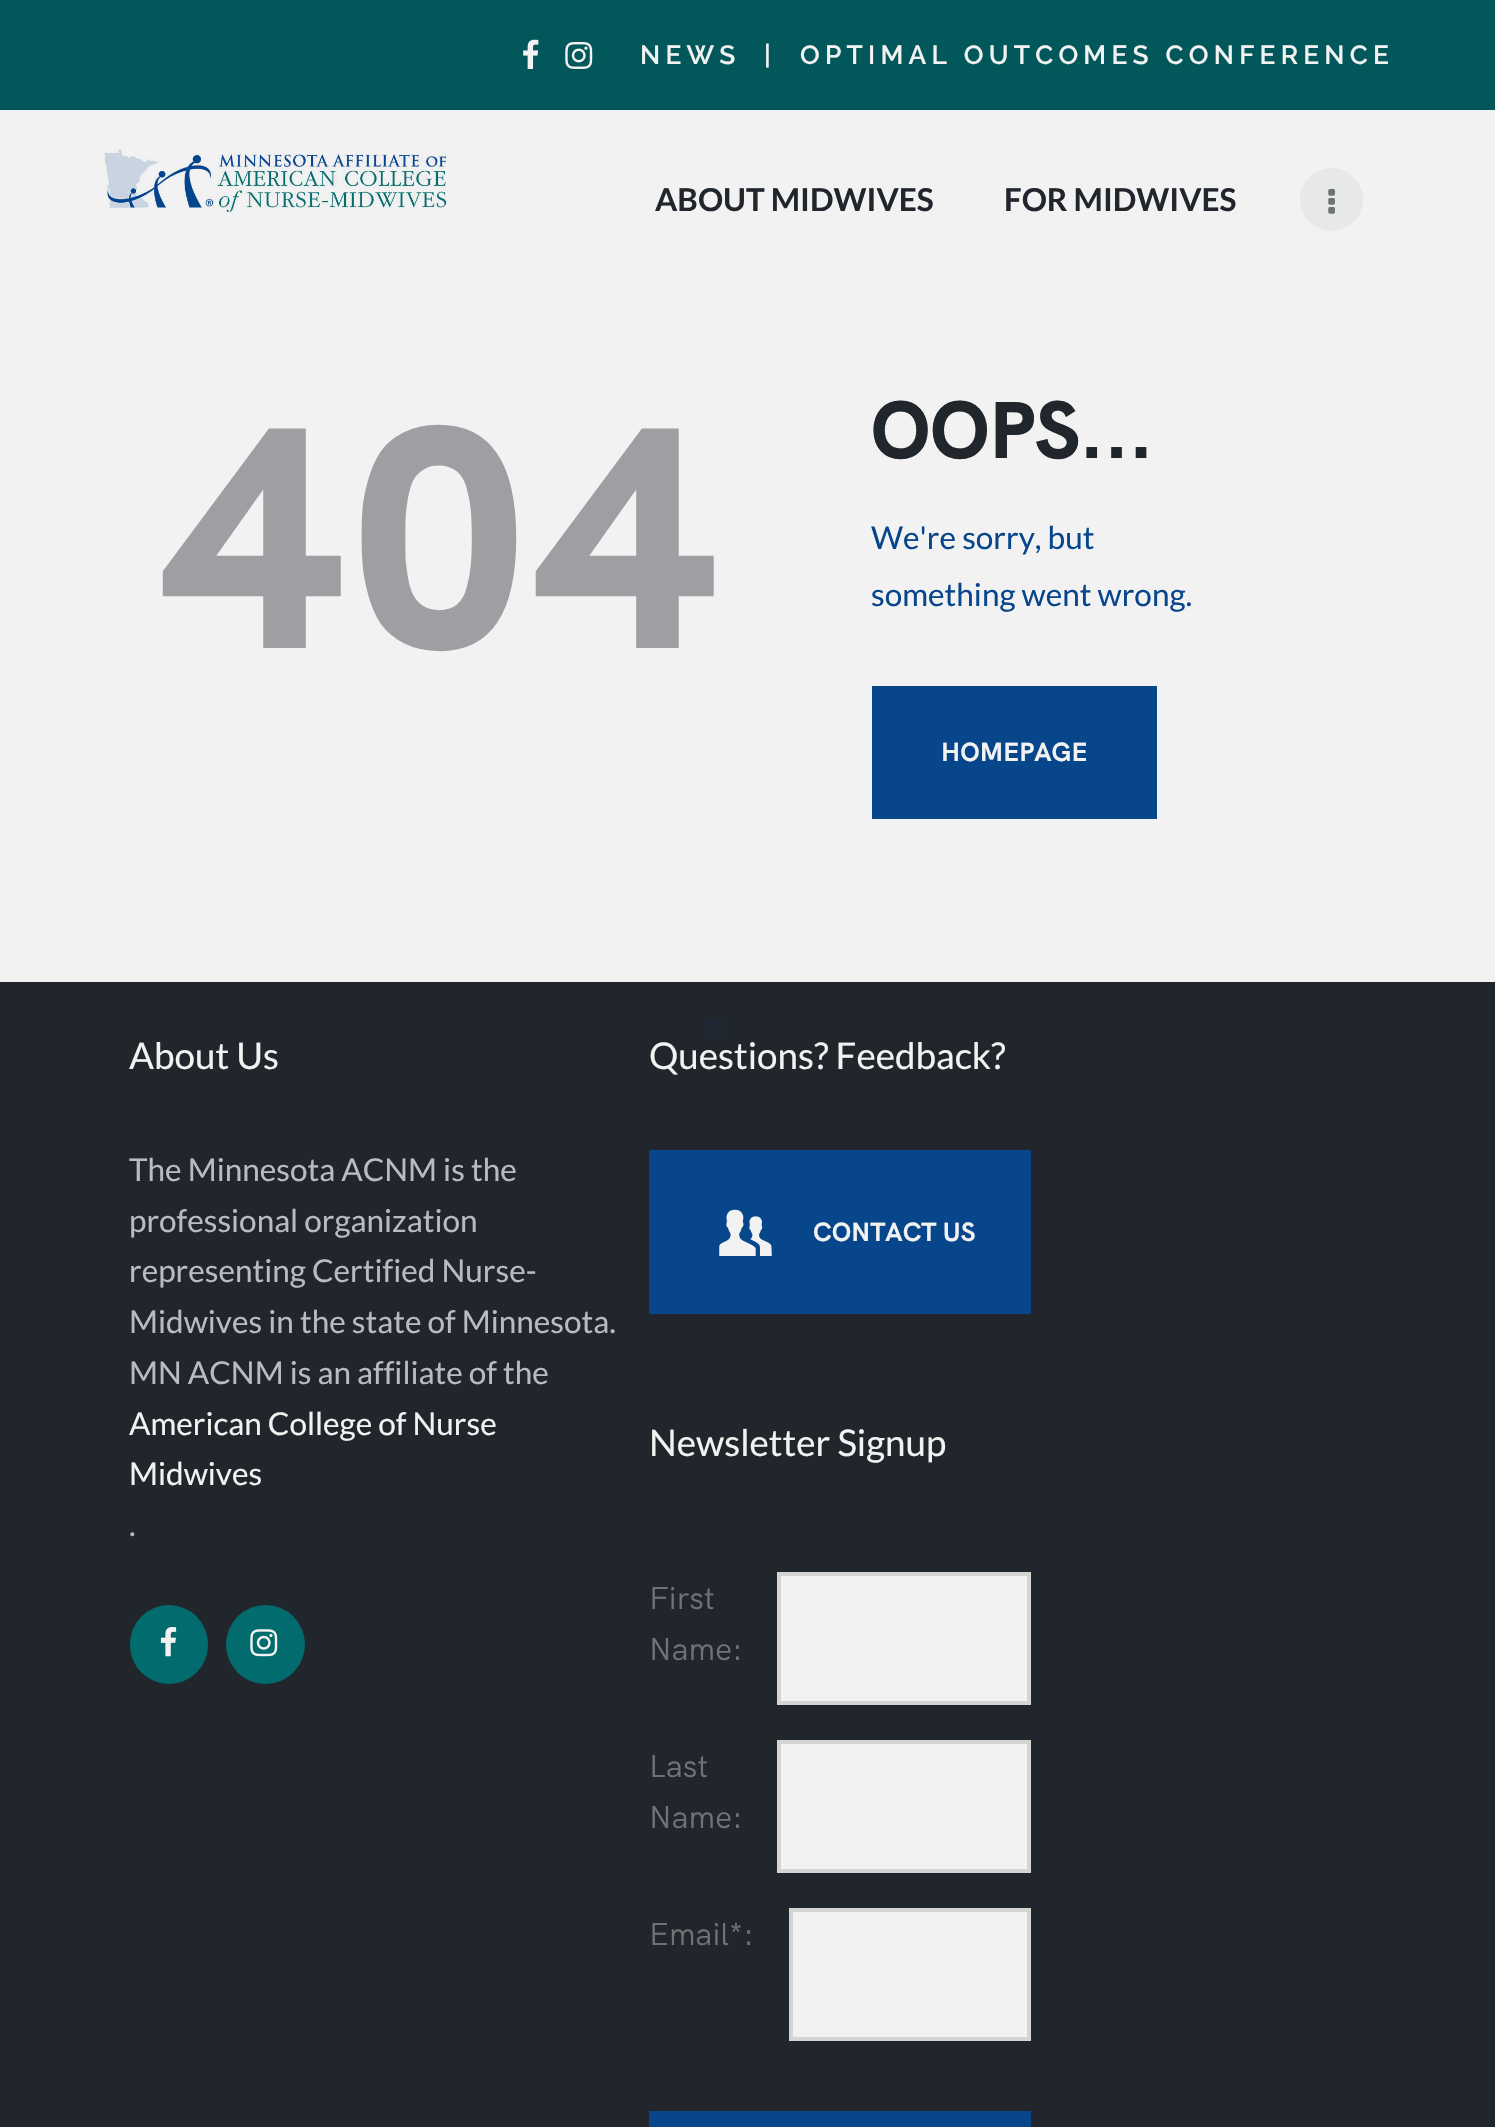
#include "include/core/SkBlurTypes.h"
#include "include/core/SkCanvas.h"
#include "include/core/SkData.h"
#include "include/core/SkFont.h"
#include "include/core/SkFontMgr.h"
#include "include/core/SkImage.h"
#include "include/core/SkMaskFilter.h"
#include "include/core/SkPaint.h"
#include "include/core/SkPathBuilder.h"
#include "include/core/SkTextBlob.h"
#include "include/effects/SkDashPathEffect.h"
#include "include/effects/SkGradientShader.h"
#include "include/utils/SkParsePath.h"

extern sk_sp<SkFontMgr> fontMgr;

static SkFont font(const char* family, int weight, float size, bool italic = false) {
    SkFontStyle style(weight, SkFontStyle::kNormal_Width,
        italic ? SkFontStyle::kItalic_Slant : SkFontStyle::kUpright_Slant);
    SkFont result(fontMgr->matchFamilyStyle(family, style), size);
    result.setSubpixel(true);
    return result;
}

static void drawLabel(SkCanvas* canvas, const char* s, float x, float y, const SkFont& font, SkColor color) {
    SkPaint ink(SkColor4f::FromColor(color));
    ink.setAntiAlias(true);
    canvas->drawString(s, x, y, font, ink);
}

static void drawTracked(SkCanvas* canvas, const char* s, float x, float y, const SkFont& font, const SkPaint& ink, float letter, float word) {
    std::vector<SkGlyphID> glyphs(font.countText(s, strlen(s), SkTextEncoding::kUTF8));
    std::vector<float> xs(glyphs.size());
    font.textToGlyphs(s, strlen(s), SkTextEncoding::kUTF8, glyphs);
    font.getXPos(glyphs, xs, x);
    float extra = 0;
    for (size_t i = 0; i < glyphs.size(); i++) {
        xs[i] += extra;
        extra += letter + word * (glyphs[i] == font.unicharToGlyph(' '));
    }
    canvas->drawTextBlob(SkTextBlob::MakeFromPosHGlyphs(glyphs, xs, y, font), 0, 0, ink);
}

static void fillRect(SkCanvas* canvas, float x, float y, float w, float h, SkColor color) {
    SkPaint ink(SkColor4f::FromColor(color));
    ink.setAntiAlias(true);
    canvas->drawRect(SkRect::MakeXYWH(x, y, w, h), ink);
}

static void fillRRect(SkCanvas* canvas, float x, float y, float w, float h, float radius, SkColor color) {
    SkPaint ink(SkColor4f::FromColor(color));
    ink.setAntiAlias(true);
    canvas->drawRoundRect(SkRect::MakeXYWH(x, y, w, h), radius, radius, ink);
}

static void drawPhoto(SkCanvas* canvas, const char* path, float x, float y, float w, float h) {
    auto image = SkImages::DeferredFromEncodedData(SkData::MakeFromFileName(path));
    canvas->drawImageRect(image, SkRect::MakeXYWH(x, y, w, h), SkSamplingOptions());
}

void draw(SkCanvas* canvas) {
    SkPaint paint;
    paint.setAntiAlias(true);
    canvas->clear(0xFFF2F2F2);
    fillRect(canvas, 0, 0, 1495, 110, 0xFF02575B);
    drawPhoto(canvas, "assets/img1.png", 523, 39, 16, 30);
    drawPhoto(canvas, "assets/img2.png", 565, 41, 28, 28);
    SkFont font1 = font("Raleway", 600, 26.25f);
    paint.setColor(0xFFF2F2F2);
    drawTracked(canvas, "NEWS", 640, 64, font1, paint, 5.25f, 0);
    drawTracked(canvas, "|", 764, 64, font1, paint, 5.25f, 0);
    drawTracked(canvas, "OPTIMAL OUTCOMES CONFERENCE", 800, 64, font1, paint, 5.25f, 0);
    drawPhoto(canvas, "assets/img3.png", 103, 149, 344, 63);
    SkFont font2 = font("Lato", 700, 31.5f);
    drawLabel(canvas, "ABOUT MIDWIVES", 655, 211, font2, 0xFF21262C);
    drawLabel(canvas, "FOR MIDWIVES", 1004, 211, font2, 0xFF21262C);
    paint.setColor(0xFFE7E8E8);
    canvas->drawCircle(1331.5f, 199.5f, 31.5f, paint);
    drawPhoto(canvas, "assets/img4.png", 1328, 188, 7, 26);
    SkFont font3 = font("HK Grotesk", 800, 315);
    drawLabel(canvas, "404", 159, 648, font3, 0xFF9E9FA2);
    SkFont font4 = font("HK Grotesk", 800, 80.5f);
    drawLabel(canvas, "OOPS...", 871, 458, font4, 0xFF21262C);
    SkFont font5 = font("Lato", 400, 31.5f);
    drawLabel(canvas, "We're sorry, but", 871, 549, font5, 0xFF08468C);
    drawLabel(canvas, "something went wrong.", 871, 606, font5, 0xFF08468C);
    fillRect(canvas, 872, 686, 285, 133, 0xFF08468C);
    SkFont font6 = font("HK Grotesk", 700, 26.25f);
    drawLabel(canvas, "HOMEPAGE", 941, 761, font6, 0xFFF2F2F2);
    fillRect(canvas, 0, 982, 1495, 1145, 0xFF21262C);
    SkFont font7 = font("Lato", 400, 36.75f);
    drawLabel(canvas, "About Us", 129, 1069, font7, 0xFFF2F2F2);
    drawLabel(canvas, "The Minnesota ACNM is the", 129, 1181, font5, 0xFFB9BBC1);
    drawLabel(canvas, "professional organization", 129, 1232, font5, 0xFFB9BBC1);
    drawLabel(canvas, "representing Certified Nurse-", 129, 1282, font5, 0xFFB9BBC1);
    drawLabel(canvas, "Midwives in the state of Minnesota.", 129, 1333, font5, 0xFFB9BBC1);
    drawLabel(canvas, "MN ACNM is an affiliate of the", 129, 1384, font5, 0xFFB9BBC1);
    drawLabel(canvas, "American College of Nurse", 129, 1435, font5, 0xFFF2F2F2);
    drawLabel(canvas, "Midwives", 129, 1485, font5, 0xFFF2F2F2);
    drawLabel(canvas, ".", 129, 1536, font5, 0xFFB9BBC1);
    fillRRect(canvas, 130, 1605, 78, 79, 39, 0xFF026B6E);
    drawPhoto(canvas, "assets/img5.png", 160, 1627, 17, 30);
    paint.setColor(0xFF026B6E);
    canvas->drawCircle(265.5f, 1644.5f, 39.5f, paint);
    drawPhoto(canvas, "assets/img6.png", 250, 1629, 28, 28);
    drawLabel(canvas, "Questions? Feedback?", 649, 1069, font7, 0xFFF2F2F2);
    fillRect(canvas, 649, 1150, 382, 164, 0xFF08468C);
    drawPhoto(canvas, "assets/img7.png", 719, 1209, 53, 47);
    drawLabel(canvas, "CONTACT US", 813, 1241, font6, 0xFFF2F2F2);
    drawLabel(canvas, "Newsletter Signup", 649, 1456, font7, 0xFFF2F2F2);
    SkFont font8 = font("HK Grotesk", 400, 31.5f);
    drawLabel(canvas, "First", 649, 1609, font8, 0xFF707376);
    drawLabel(canvas, "Name:", 649, 1660, font8, 0xFF707376);
    paint.setColor(0xFFF2F2F2);
    canvas->drawRect(SkRect::MakeXYWH(779, 1574, 250, 129), paint);
    paint.setStroke(true);
    paint.setStrokeWidth(4);
    paint.setColor(0xFFD4D4D2);
    canvas->drawRect(SkRect::MakeXYWH(779, 1574, 250, 129), paint);
    drawLabel(canvas, "Last", 649, 1777, font8, 0xFF707376);
    drawLabel(canvas, "Name:", 649, 1828, font8, 0xFF707376);
    paint.setStroke(false);
    paint.setColor(0xFFF2F2F2);
    canvas->drawRect(SkRect::MakeXYWH(779, 1742, 250, 129), paint);
    paint.setStroke(true);
    paint.setColor(0xFFD4D4D2);
    canvas->drawRect(SkRect::MakeXYWH(779, 1742, 250, 129), paint);
    drawLabel(canvas, "Email*:", 649, 1945, font8, 0xFF707376);
    paint.setStroke(false);
    paint.setColor(0xFFF2F2F2);
    canvas->drawRect(SkRect::MakeXYWH(791, 1910, 238, 129), paint);
    paint.setStroke(true);
    paint.setColor(0xFFD4D4D2);
    canvas->drawRect(SkRect::MakeXYWH(791, 1910, 238, 129), paint);
    fillRect(canvas, 649, 2111, 382, 16, 0xFF08468C);
    fillRect(canvas, 705, 1020, 18, 18, 0xFF1F2832);
}
